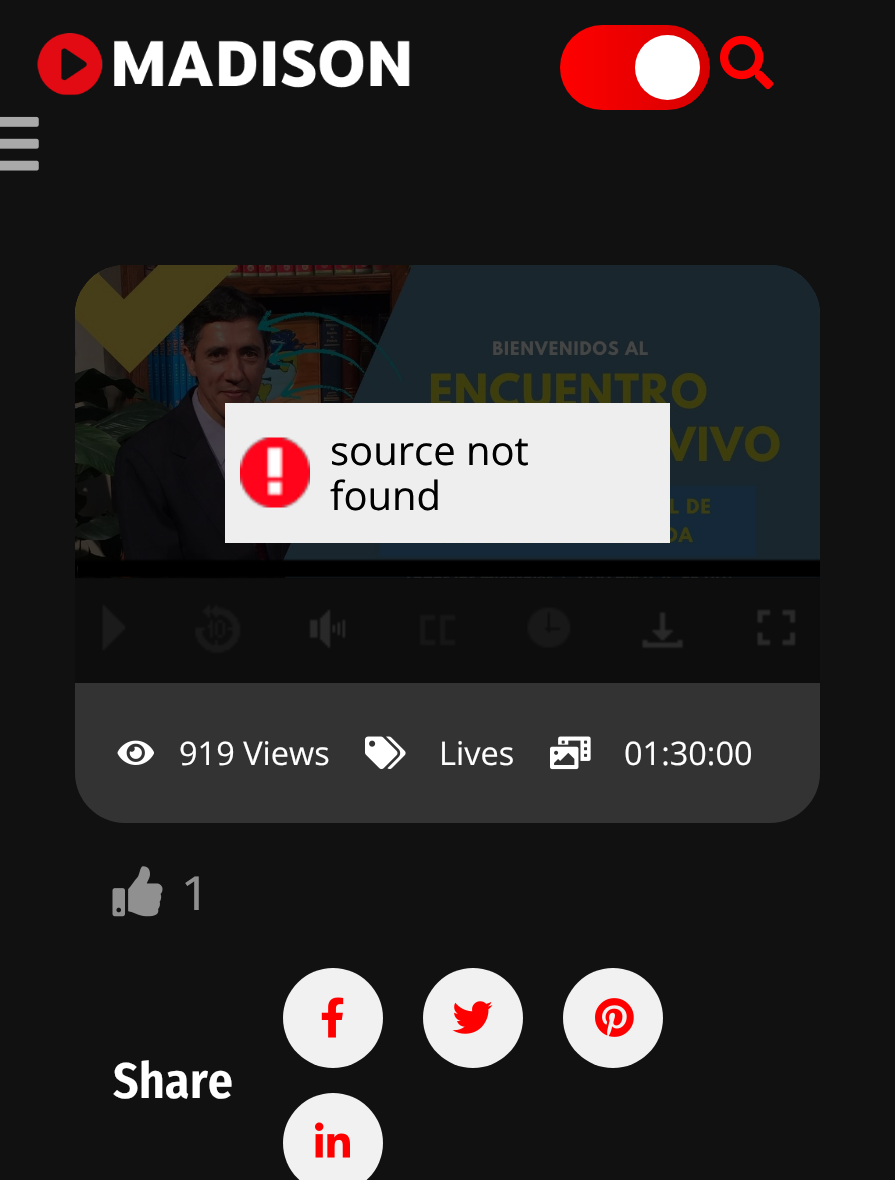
#include "include/core/SkBlurTypes.h"
#include "include/core/SkCanvas.h"
#include "include/core/SkData.h"
#include "include/core/SkFont.h"
#include "include/core/SkFontMgr.h"
#include "include/core/SkImage.h"
#include "include/core/SkMaskFilter.h"
#include "include/core/SkPaint.h"
#include "include/core/SkPathBuilder.h"
#include "include/core/SkTextBlob.h"
#include "include/effects/SkDashPathEffect.h"
#include "include/effects/SkGradientShader.h"
#include "include/utils/SkParsePath.h"

extern sk_sp<SkFontMgr> fontMgr;

static SkFont font(const char* family, int weight, float size, bool italic = false) {
    SkFontStyle style(weight, SkFontStyle::kNormal_Width,
        italic ? SkFontStyle::kItalic_Slant : SkFontStyle::kUpright_Slant);
    SkFont result(fontMgr->matchFamilyStyle(family, style), size);
    result.setSubpixel(true);
    return result;
}

static void drawLabel(SkCanvas* canvas, const char* s, float x, float y, const SkFont& font, SkColor color) {
    SkPaint ink(SkColor4f::FromColor(color));
    ink.setAntiAlias(true);
    canvas->drawString(s, x, y, font, ink);
}

static void fillRect(SkCanvas* canvas, float x, float y, float w, float h, SkColor color) {
    SkPaint ink(SkColor4f::FromColor(color));
    ink.setAntiAlias(true);
    canvas->drawRect(SkRect::MakeXYWH(x, y, w, h), ink);
}

static void drawPhoto(SkCanvas* canvas, const char* path, float x, float y, float w, float h) {
    auto image = SkImages::DeferredFromEncodedData(SkData::MakeFromFileName(path));
    canvas->drawImageRect(image, SkRect::MakeXYWH(x, y, w, h), SkSamplingOptions());
}

static SkPath parsePath(const char* data, bool evenOdd = false) {
    SkPath result = *SkParsePath::FromSVGString(data);
    if (evenOdd) result.setFillType(SkPathFillType::kEvenOdd);
    return result;
}

void draw(SkCanvas* canvas) {
    SkPaint paint;
    paint.setAntiAlias(true);
    canvas->clear(0xFF111111);
    drawPhoto(canvas, "assets/img1.png", 37, 33, 373, 63);
    {
        const SkColor colors[] = {0xFFFF0000, 0xFFD60000};
        const float stops[] = {0, 1};
        const SkPoint ends[] = {{560, 68}, {710, 67}};
        paint.setShader(SkGradientShader::MakeLinear(ends, colors, stops, 2, SkTileMode::kClamp));
        paint.setAlpha(255);
    }
    canvas->drawRoundRect(SkRect::MakeXYWH(560, 25, 150, 85), 42.5f, 42.5f, paint);
    paint.setShader(nullptr);
    paint.setColor(0xFFFFFFFF);
    canvas->drawCircle(667.5f, 67.5f, 32.5f, paint);
    drawPhoto(canvas, "assets/img2.png", 720, 35, 54, 55);
    drawPhoto(canvas, "assets/img3.png", 0, 116, 39, 55);
    paint.setColor(0xFF000000);
    canvas->drawPath(parsePath("M125 265H770C797.5 265 820 287.5 820 315V683H75V315C75 287.5 97.5 265 125 265Z"), paint);
    paint.setColor(0xB0000000);
    canvas->drawPath(parsePath("M125 265H770C797.5 265 820 287.5 820 315V683H75V315C75 287.5 97.5 265 125 265Z"), paint);
    drawPhoto(canvas, "assets/img4.png", 75, 265, 745, 313);
    fillRect(canvas, 75, 578, 745, 105, 0xFF1F1F1F);
    drawPhoto(canvas, "assets/img5.png", 75, 560, 3, 19);
    drawPhoto(canvas, "assets/img6.png", 78, 558, 740, 21);
    drawPhoto(canvas, "assets/img7.png", 817, 559, 3, 20);
    drawPhoto(canvas, "assets/img8.png", 102, 604, 24, 47);
    drawPhoto(canvas, "assets/img9.png", 195, 604, 46, 50);
    drawPhoto(canvas, "assets/img10.png", 309, 609, 37, 40);
    drawPhoto(canvas, "assets/img11.png", 419, 614, 37, 32);
    drawPhoto(canvas, "assets/img12.png", 527, 607, 44, 41);
    drawPhoto(canvas, "assets/img13.png", 641, 611, 43, 38);
    drawPhoto(canvas, "assets/img14.png", 756, 609, 40, 38);
    paint.setColor(0x99000000);
    canvas->drawPath(parsePath("M125 265H770C797.5 265 820 287.5 820 315V683H75V315C75 287.5 97.5 265 125 265Z"), paint);
    fillRect(canvas, 225, 403, 445, 140, 0xFFEEEEEE);
    drawPhoto(canvas, "assets/img15.png", 240, 437, 70, 71);
    SkFont font1 = font("Open Sans", 400, 40);
    drawLabel(canvas, "source not", 330, 465, font1, 0xFF000000);
    drawLabel(canvas, "found", 330, 510, font1, 0xFF000000);
    paint.setColor(0xFF333333);
    canvas->drawPath(parsePath("M75 683H820V773C820 800.5 797.5 823 770 823H125C97.5 823 75 800.5 75 773Z"), paint);
    drawPhoto(canvas, "assets/img16.png", 117, 740, 37, 25);
    SkFont font2 = font("Open Sans", 400, 32.5f);
    drawLabel(canvas, "919 Views", 179, 765, font2, 0xFFFFFFFF);
    drawPhoto(canvas, "assets/img17.png", 365, 736, 41, 33);
    drawLabel(canvas, "Lives", 439, 765, font2, 0xFFFFFFFF);
    drawPhoto(canvas, "assets/img18.png", 550, 736, 41, 34);
    drawLabel(canvas, "01:30:00", 624, 765, font2, 0xFFFFFFFF);
    drawPhoto(canvas, "assets/img19.png", 112, 866, 51, 51);
    SkFont font3 = font("Fira Sans Condensed", 400, 50);
    drawLabel(canvas, "1", 184, 910, font3, 0xFF909090);
    SkFont font4 = font("Fira Sans Condensed", 600, 50);
    drawLabel(canvas, "Share", 113, 1098, font4, 0xFFFFFFFF);
    paint.setColor(0xFFF1F1F1);
    canvas->drawCircle(333, 1018, 50, paint);
    drawPhoto(canvas, "assets/img20.png", 321, 997, 23, 41);
    canvas->drawCircle(473, 1018, 50, paint);
    drawPhoto(canvas, "assets/img21.png", 452, 1001, 41, 33);
    canvas->drawCircle(613, 1018, 50, paint);
    drawPhoto(canvas, "assets/img22.png", 595, 998, 39, 39);
    canvas->drawCircle(333, 1143, 50, paint);
    drawPhoto(canvas, "assets/img23.png", 315, 1122, 35, 36);
}
